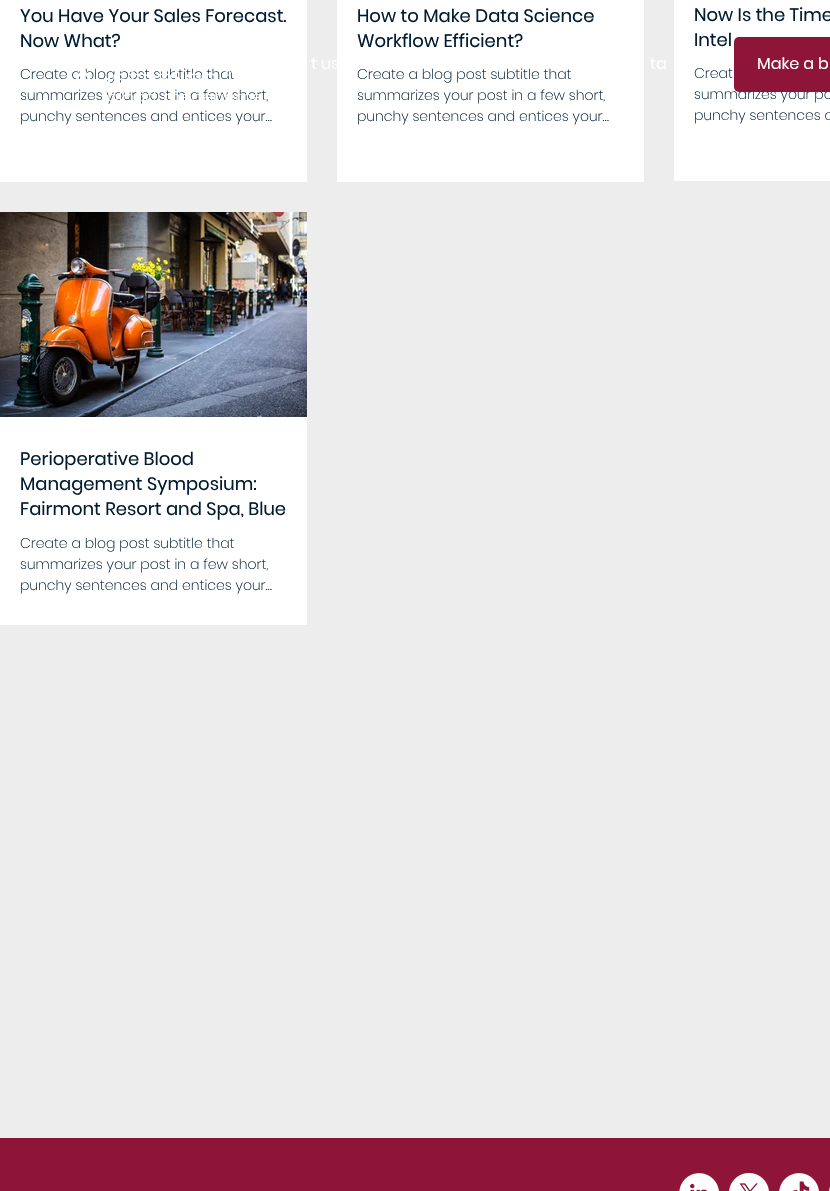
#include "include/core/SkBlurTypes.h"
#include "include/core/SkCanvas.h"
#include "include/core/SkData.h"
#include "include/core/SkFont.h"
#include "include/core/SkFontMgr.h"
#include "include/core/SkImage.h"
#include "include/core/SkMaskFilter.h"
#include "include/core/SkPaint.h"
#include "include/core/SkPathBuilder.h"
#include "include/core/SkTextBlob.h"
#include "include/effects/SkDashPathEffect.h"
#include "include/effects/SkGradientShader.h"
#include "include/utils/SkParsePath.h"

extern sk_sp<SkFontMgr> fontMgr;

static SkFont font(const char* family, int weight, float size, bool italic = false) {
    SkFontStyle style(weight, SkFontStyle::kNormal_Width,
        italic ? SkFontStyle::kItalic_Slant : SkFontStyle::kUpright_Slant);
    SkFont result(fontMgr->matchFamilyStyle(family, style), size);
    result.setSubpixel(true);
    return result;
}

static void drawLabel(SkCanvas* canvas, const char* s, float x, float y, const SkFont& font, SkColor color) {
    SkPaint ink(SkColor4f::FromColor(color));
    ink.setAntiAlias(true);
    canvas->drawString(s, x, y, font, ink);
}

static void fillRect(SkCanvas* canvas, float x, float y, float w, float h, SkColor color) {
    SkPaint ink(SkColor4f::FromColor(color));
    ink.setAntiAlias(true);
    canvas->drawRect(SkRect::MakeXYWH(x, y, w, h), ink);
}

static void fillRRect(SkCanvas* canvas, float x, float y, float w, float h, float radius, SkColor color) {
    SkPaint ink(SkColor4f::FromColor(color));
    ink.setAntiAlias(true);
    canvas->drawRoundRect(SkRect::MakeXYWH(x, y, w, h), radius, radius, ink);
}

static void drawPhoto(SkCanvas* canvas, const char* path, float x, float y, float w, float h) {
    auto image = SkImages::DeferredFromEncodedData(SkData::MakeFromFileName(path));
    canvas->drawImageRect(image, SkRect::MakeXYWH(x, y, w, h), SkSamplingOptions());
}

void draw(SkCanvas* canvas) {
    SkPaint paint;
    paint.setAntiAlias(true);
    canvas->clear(0xFFEDEDED);
    fillRect(canvas, 0, 0, 307, 182, 0xFFFFFFFF);
    SkFont font1 = font("Poppins", 400, 18);
    drawLabel(canvas, "You Have Your Sales Forecast.", 20, 22, font1, 0xFF001B32);
    drawLabel(canvas, "Now What?", 20, 47, font1, 0xFF001B32);
    SkFont font2 = font("Poppins", 200, 14);
    drawLabel(canvas, "Create a blog post subtitle that", 20, 79, font2, 0xFF001B32);
    drawLabel(canvas, "summarizes your post in a few short,", 20, 100, font2, 0xFF001B32);
    drawLabel(canvas, "punchy sentences and entices your…", 20, 121, font2, 0xFF001B32);
    fillRect(canvas, 337, 0, 307, 182, 0xFFFFFFFF);
    drawLabel(canvas, "How to Make Data Science", 357, 22, font1, 0xFF001B32);
    drawLabel(canvas, "Workflow Efficient?", 357, 47, font1, 0xFF001B32);
    drawLabel(canvas, "Create a blog post subtitle that", 357, 79, font2, 0xFF001B32);
    drawLabel(canvas, "summarizes your post in a few short,", 357, 100, font2, 0xFF001B32);
    drawLabel(canvas, "punchy sentences and entices your…", 357, 121, font2, 0xFF001B32);
    fillRect(canvas, 674, 0, 156, 181, 0xFFFFFFFF);
    drawLabel(canvas, "Now Is the Time", 694, 21, font1, 0xFF001B32);
    drawLabel(canvas, "Intel", 694, 46, font1, 0xFF001B32);
    drawLabel(canvas, "Creat", 694, 78, font2, 0xFF001B32);
    drawLabel(canvas, "summarizes your po", 694, 99, font2, 0xFF001B32);
    drawLabel(canvas, "punchy sentences a", 694, 120, font2, 0xFF001B32);
    drawPhoto(canvas, "assets/img1.png", 0, 212, 307, 205);
    fillRect(canvas, 0, 417, 307, 208, 0xFFFFFFFF);
    drawLabel(canvas, "Perioperative Blood", 20, 465, font1, 0xFF001B32);
    drawLabel(canvas, "Management Symposium:", 20, 490, font1, 0xFF001B32);
    drawLabel(canvas, "Fairmont Resort and Spa, Blue", 20, 515, font1, 0xFF001B32);
    drawLabel(canvas, "Create a blog post subtitle that", 20, 548, font2, 0xFF001B32);
    drawLabel(canvas, "summarizes your post in a few short,", 20, 569, font2, 0xFF001B32);
    drawLabel(canvas, "punchy sentences and entices your…", 20, 590, font2, 0xFF001B32);
    SkFont font3 = font("Poppins", 400, 16);
    drawLabel(canvas, "t us", 311, 69, font3, 0xFFFFFFFF);
    drawLabel(canvas, "ta", 650, 69, font3, 0xFFFFFFFF);
    fillRRect(canvas, 734, 37, 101, 55, 5, 0xFF8E1537);
    drawLabel(canvas, "Make a b", 757, 69, font3, 0xFFFFFFFF);
    drawPhoto(canvas, "assets/img2.png", 75, 69, 191, 33);
    fillRect(canvas, 0, 1138, 830, 53, 0xFF8E1537);
    drawPhoto(canvas, "assets/img3.png", 679, 1173, 40, 18);
    drawPhoto(canvas, "assets/img4.png", 729, 1173, 40, 18);
    drawPhoto(canvas, "assets/img5.png", 779, 1173, 40, 18);
    drawPhoto(canvas, "assets/img6.png", 829, 1186, 1, 5);
}
